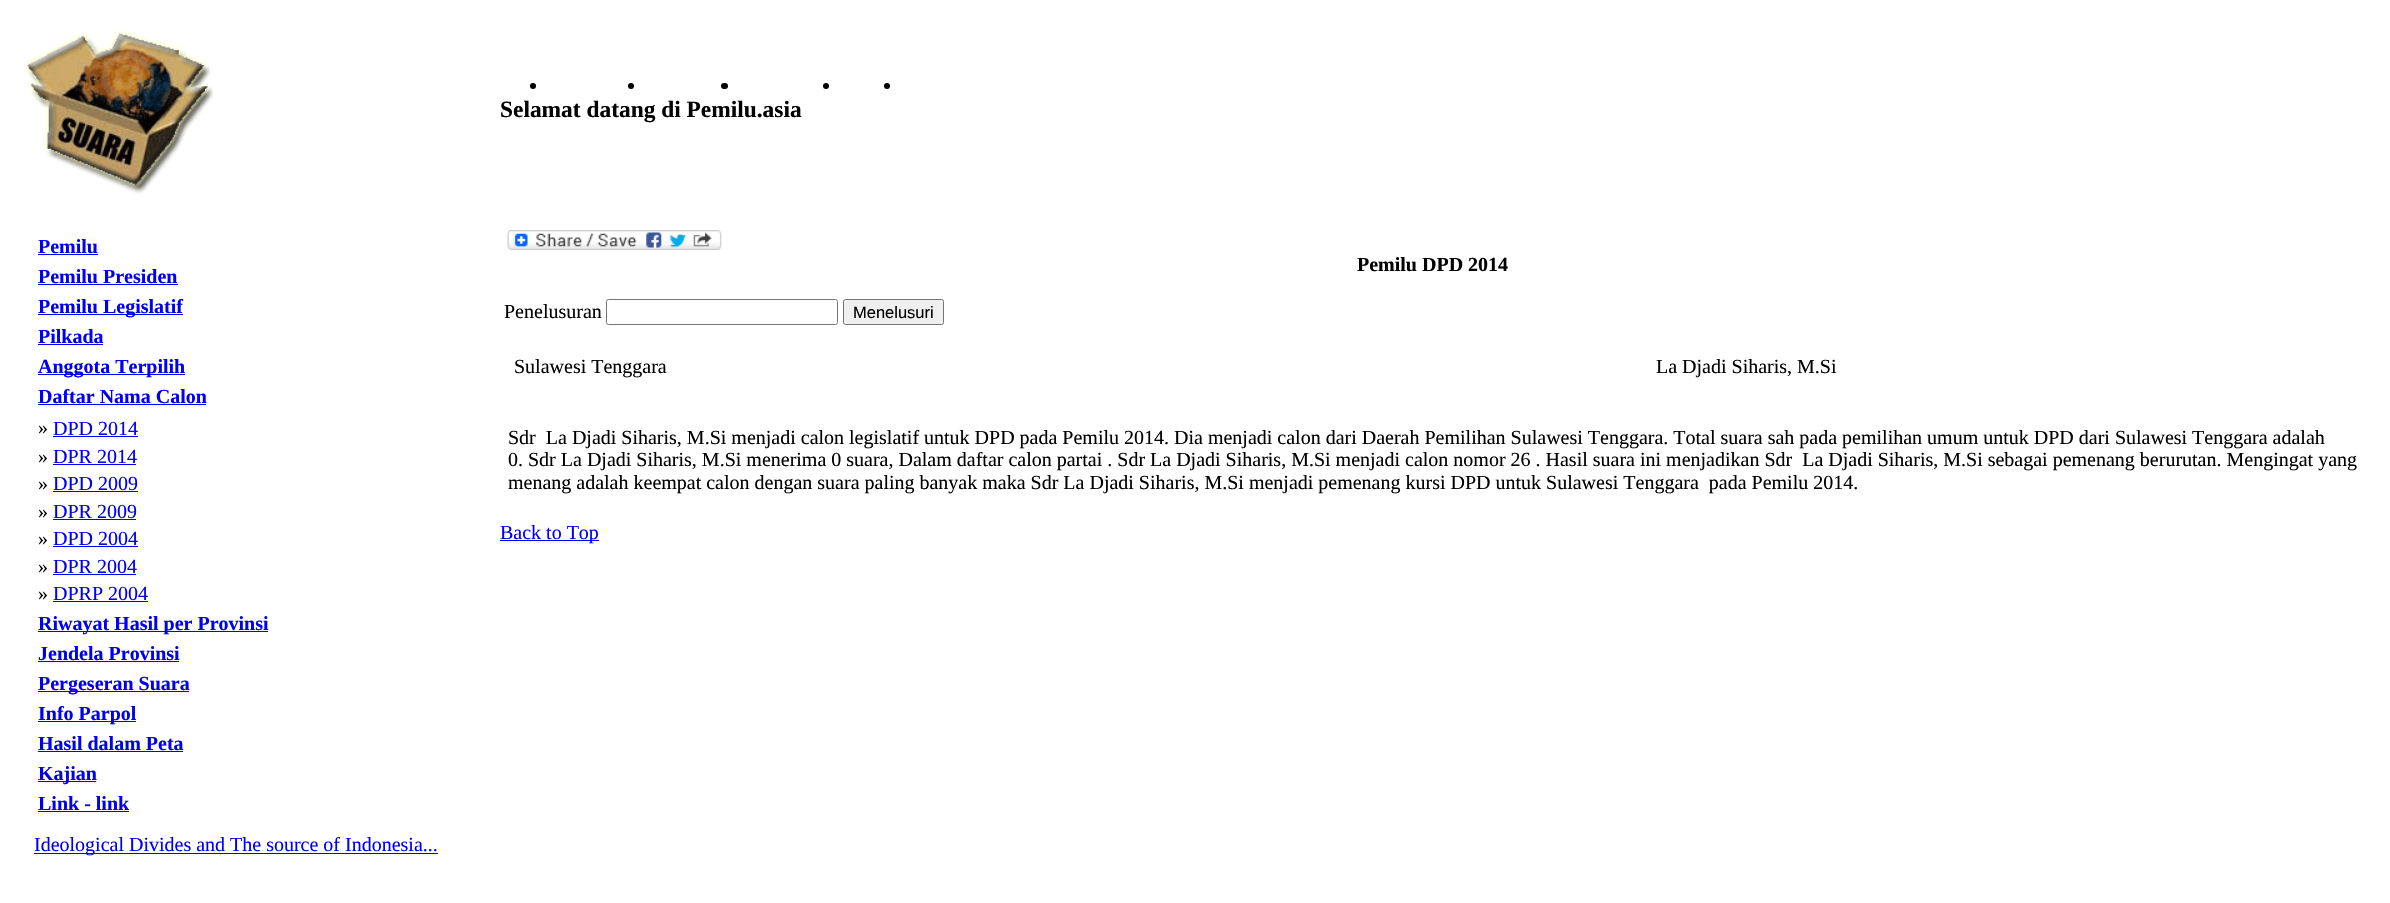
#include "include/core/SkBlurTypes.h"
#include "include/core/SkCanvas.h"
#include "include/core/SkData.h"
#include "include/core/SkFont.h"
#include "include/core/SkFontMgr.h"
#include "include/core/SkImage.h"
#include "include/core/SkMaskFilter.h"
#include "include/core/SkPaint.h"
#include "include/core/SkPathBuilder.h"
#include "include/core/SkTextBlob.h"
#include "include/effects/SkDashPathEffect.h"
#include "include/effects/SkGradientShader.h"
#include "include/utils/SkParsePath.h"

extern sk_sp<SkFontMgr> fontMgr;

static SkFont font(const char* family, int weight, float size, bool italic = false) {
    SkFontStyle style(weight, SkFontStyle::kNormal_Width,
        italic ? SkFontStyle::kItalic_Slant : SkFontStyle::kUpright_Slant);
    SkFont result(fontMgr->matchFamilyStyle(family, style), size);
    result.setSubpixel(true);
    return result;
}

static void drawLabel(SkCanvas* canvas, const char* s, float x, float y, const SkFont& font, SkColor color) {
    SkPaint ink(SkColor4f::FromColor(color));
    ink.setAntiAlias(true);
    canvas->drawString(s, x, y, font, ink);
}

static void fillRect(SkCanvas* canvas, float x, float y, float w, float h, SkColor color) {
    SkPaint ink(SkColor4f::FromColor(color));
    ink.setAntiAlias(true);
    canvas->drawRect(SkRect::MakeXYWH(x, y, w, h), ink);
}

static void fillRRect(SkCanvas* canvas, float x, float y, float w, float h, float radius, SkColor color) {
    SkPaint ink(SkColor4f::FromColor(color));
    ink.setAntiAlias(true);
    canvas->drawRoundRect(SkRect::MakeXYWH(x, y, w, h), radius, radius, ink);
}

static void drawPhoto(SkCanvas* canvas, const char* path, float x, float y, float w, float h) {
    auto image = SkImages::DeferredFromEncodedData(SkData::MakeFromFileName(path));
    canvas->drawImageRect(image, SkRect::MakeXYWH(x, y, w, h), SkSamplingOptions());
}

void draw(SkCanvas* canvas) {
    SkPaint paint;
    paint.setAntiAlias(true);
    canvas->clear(0xFFFFFFFF);
    drawPhoto(canvas, "assets/img1.png", 25, 30, 188, 164);
    paint.setColor(0xFF000000);
    canvas->drawCircle(533, 86, 3, paint);
    canvas->drawCircle(631, 86, 3, paint);
    fillRRect(canvas, 721, 83, 7, 6, 3, 0xFF000000);
    canvas->drawCircle(826, 86, 3, paint);
    canvas->drawCircle(887, 86, 3, paint);
    SkFont font1 = font("Liberation Serif", 700, 23.4f);
    drawLabel(canvas, "Selamat datang di Pemilu.asia", 500, 117, font1, 0xFF000000);
    SkFont font2 = font("Liberation Serif", 700, 20);
    drawLabel(canvas, "Pemilu", 38, 253, font2, 0xFF0000EE);
    fillRect(canvas, 38, 254, 60, 1, 0xFF0000EE);
    drawLabel(canvas, "Pemilu Presiden", 38, 283, font2, 0xFF0000EE);
    fillRect(canvas, 38, 284, 140, 1, 0xFF0000EE);
    fillRect(canvas, 38, 314, 145, 1, 0xFF0000EE);
    drawLabel(canvas, "Pemilu Legislatif", 38, 313, font2, 0xFF0000EE);
    drawLabel(canvas, "Pilkada", 38, 343, font2, 0xFF0000EE);
    fillRect(canvas, 38, 344, 65, 1, 0xFF0000EE);
    fillRect(canvas, 38, 374, 147, 1, 0xFF0000EE);
    drawLabel(canvas, "Anggota Terpilih", 38, 373, font2, 0xFF0000EE);
    drawLabel(canvas, "Daftar Nama Calon", 38, 403, font2, 0xFF0000EE);
    fillRect(canvas, 38, 404, 168, 1, 0xFF0000EE);
    SkFont font3 = font("Liberation Serif", 400, 20);
    drawLabel(canvas, "»", 38, 434, font3, 0xFF000000);
    drawLabel(canvas, "DPD 2014", 53, 435, font3, 0xFF0000EE);
    fillRect(canvas, 53, 436, 85, 1, 0xFF0000EE);
    drawLabel(canvas, "»", 38, 463, font3, 0xFF000000);
    drawLabel(canvas, "DPR 2014", 53, 463, font3, 0xFF0000EE);
    fillRect(canvas, 53, 464, 83, 1, 0xFF0000EE);
    drawLabel(canvas, "»", 38, 490, font3, 0xFF000000);
    drawLabel(canvas, "DPD 2009", 53, 490, font3, 0xFF0000EE);
    fillRect(canvas, 53, 491, 85, 1, 0xFF0000EE);
    drawLabel(canvas, "»", 38, 518, font3, 0xFF000000);
    drawLabel(canvas, "DPR 2009", 53, 518, font3, 0xFF0000EE);
    fillRect(canvas, 53, 519, 83, 1, 0xFF0000EE);
    drawLabel(canvas, "»", 38, 545, font3, 0xFF000000);
    drawLabel(canvas, "DPD 2004", 53, 545, font3, 0xFF0000EE);
    fillRect(canvas, 53, 546, 85, 1, 0xFF0000EE);
    drawLabel(canvas, "»", 38, 573, font3, 0xFF000000);
    drawLabel(canvas, "DPR 2004", 53, 573, font3, 0xFF0000EE);
    fillRect(canvas, 53, 574, 83, 1, 0xFF0000EE);
    drawLabel(canvas, "»", 38, 600, font3, 0xFF000000);
    drawLabel(canvas, "DPRP 2004", 53, 600, font3, 0xFF0000EE);
    fillRect(canvas, 53, 601, 95, 1, 0xFF0000EE);
    fillRect(canvas, 38, 631, 230, 1, 0xFF0000EE);
    drawLabel(canvas, "Riwayat Hasil per Provinsi", 38, 630, font2, 0xFF0000EE);
    drawLabel(canvas, "Jendela Provinsi", 38, 660, font2, 0xFF0000EE);
    fillRect(canvas, 38, 661, 141, 1, 0xFF0000EE);
    fillRect(canvas, 38, 691, 151, 1, 0xFF0000EE);
    drawLabel(canvas, "Pergeseran Suara", 38, 690, font2, 0xFF0000EE);
    fillRect(canvas, 38, 721, 98, 1, 0xFF0000EE);
    drawLabel(canvas, "Info Parpol", 38, 720, font2, 0xFF0000EE);
    drawLabel(canvas, "Hasil dalam Peta", 38, 750, font2, 0xFF0000EE);
    fillRect(canvas, 38, 751, 145, 1, 0xFF0000EE);
    fillRect(canvas, 38, 781, 58, 1, 0xFF0000EE);
    drawLabel(canvas, "Kajian", 38, 780, font2, 0xFF0000EE);
    drawLabel(canvas, "Link - link", 38, 810, font2, 0xFF0000EE);
    fillRect(canvas, 38, 811, 91, 1, 0xFF0000EE);
    fillRect(canvas, 34, 853, 404, 1, 0xFF0000EE);
    drawLabel(canvas, "Ideological Divides and The source of Indonesia...", 34, 851, font3, 0xFF0000EE);
    drawPhoto(canvas, "assets/img2.png", 507, 230, 215, 20);
    drawLabel(canvas, "Pemilu DPD 2014", 1357, 271, font2, 0xFF000000);
    drawLabel(canvas, "Penelusuran", 504, 318, font3, 0xFF000000);
    paint.setStroke(true);
    paint.setStrokeWidth(1);
    paint.setColor(0xFF767676);
    canvas->drawRoundRect(SkRect::MakeXYWH(606.5f, 299.5f, 231, 25), 2, 2, paint);
    paint.setStroke(false);
    paint.setColor(0xFFEFEFEF);
    canvas->drawRoundRect(SkRect::MakeXYWH(843.5f, 299.5f, 100, 25), 2, 2, paint);
    paint.setStroke(true);
    paint.setColor(0xFF767676);
    canvas->drawRoundRect(SkRect::MakeXYWH(843.5f, 299.5f, 100, 25), 2, 2, paint);
    SkFont font4 = font("Liberation Sans", 400, 16.5f);
    drawLabel(canvas, "Menelusuri", 853, 318, font4, 0xFF000000);
    drawLabel(canvas, "Sulawesi Tenggara", 514, 373, font3, 0xFF000000);
    drawLabel(canvas, "La Djadi Siharis, M.Si", 1656, 373, font3, 0xFF000000);
    drawLabel(canvas, "Sdr  La Djadi Siharis, M.Si menjadi calon legislatif untuk DPD pada Pemilu 2014. Dia menjadi calon dari Daerah Pemilihan Sulawesi Tenggara. Total suara sah pada pemilihan umum untuk DPD dari Sulawesi Tenggara adalah", 508, 444, font3, 0xFF000000);
    drawLabel(canvas, "0. Sdr La Djadi Siharis, M.Si menerima 0 suara, Dalam daftar calon partai . Sdr La Djadi Siharis, M.Si menjadi calon nomor 26 . Hasil suara ini menjadikan Sdr  La Djadi Siharis, M.Si sebagai pemenang berurutan. Mengingat yang", 508, 466, font3, 0xFF000000);
    drawLabel(canvas, "menang adalah keempat calon dengan suara paling banyak maka Sdr La Djadi Siharis, M.Si menjadi pemenang kursi DPD untuk Sulawesi Tenggara  pada Pemilu 2014.", 508, 489, font3, 0xFF000000);
    fillRect(canvas, 500, 540, 99, 1, 0xFF0000EE);
    drawLabel(canvas, "Back to Top", 500, 539, font3, 0xFF0000EE);
}
